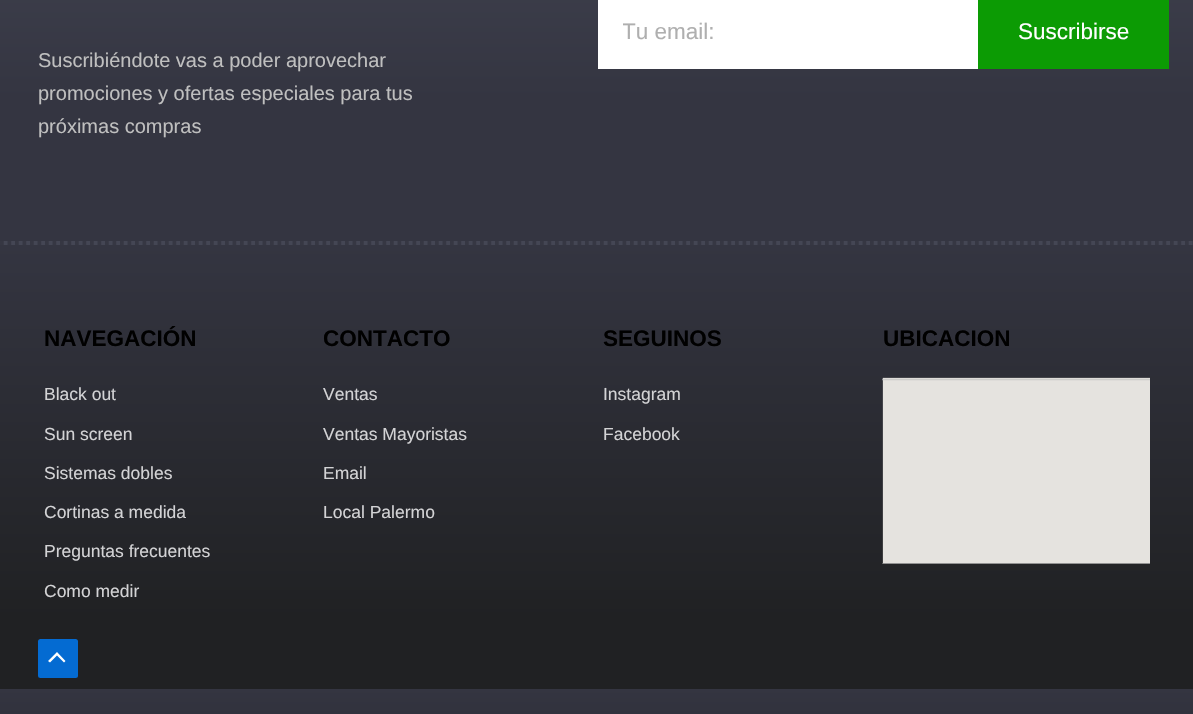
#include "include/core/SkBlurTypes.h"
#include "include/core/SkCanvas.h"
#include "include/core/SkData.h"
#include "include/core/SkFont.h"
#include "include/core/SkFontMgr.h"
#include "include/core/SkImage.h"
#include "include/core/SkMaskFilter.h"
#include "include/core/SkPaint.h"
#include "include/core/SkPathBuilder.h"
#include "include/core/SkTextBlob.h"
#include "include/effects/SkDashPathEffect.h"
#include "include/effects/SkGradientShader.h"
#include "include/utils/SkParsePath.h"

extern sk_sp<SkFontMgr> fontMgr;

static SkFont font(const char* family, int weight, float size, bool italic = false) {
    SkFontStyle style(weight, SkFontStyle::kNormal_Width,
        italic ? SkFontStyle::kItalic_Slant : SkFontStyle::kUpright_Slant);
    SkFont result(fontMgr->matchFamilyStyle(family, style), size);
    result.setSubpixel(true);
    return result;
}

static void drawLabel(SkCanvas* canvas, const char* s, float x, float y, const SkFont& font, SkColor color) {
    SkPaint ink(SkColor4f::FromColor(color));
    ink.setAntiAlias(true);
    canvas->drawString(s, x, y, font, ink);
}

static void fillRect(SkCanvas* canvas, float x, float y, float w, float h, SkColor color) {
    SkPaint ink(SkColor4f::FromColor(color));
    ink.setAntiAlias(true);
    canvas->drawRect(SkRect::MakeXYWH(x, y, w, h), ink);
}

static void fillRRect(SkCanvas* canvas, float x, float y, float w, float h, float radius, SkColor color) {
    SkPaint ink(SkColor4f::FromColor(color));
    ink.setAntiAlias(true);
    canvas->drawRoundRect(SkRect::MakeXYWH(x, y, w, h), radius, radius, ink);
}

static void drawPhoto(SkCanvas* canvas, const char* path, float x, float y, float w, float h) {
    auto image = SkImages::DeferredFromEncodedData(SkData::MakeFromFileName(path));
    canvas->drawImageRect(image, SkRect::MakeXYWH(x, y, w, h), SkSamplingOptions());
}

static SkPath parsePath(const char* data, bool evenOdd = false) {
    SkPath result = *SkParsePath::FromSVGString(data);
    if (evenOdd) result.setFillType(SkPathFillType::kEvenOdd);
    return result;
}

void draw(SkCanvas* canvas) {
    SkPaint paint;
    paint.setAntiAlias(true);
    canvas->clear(0xFFFFFFFF);
    {
        const SkColor colors[] = {0xFF444654, 0xFF343541};
        const float stops[] = {0, 0.64f};
        const SkPoint ends[] = {{597, -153}, {597, 241}};
        paint.setShader(SkGradientShader::MakeLinear(ends, colors, stops, 2, SkTileMode::kClamp));
        paint.setAlpha(255);
    }
    canvas->drawRect(SkRect::MakeXYWH(0, 0, 1193, 241), paint);
    {
        const SkColor colors[] = {0xFF444654, 0xFF343541};
        const float stops[] = {0, 0.64f};
        const SkPoint ends[] = {{597, 241}, {597, 635}};
        paint.setShader(SkGradientShader::MakeLinear(ends, colors, stops, 2, SkTileMode::kClamp));
        paint.setAlpha(255);
    }
    canvas->drawRect(SkRect::MakeXYWH(0, 241, 1193, 4), paint);
    paint.setStroke(true);
    paint.setStrokeWidth(3.8f);
    paint.setShader(nullptr);
    paint.setColor(0xFF363743);
    paint.setPathEffect(SkDashPathEffect::Make({{3.75f, 3.75f}}, 0));
    canvas->drawPath(parsePath("M0 243H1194"), paint);
    paint.setPathEffect(nullptr);
    fillRect(canvas, 598, 0, 380, 69, 0xFFFFFFFF);
    canvas->save();
    canvas->clipRect(SkRect::MakeXYWH(623, 19, 330, 26));
    SkFont font1 = font("Liberation Sans", 400, 22.5f);
    drawLabel(canvas, "Tu email:", 622, 39, font1, 0xFFAFAFAF);
    canvas->restore();
    fillRect(canvas, 978, 0, 191, 69, 0xFF0C9B04);
    drawLabel(canvas, "Suscribirse", 1018, 39, font1, 0xFFFFFFFF);
    SkFont font2 = font("Liberation Sans", 400, 20);
    drawLabel(canvas, "Suscribiéndote vas a poder aprovechar", 38, 67, font2, 0xFFBFBFBF);
    drawLabel(canvas, "promociones y ofertas especiales para tus", 38, 100, font2, 0xFFBFBFBF);
    drawLabel(canvas, "próximas compras", 38, 133, font2, 0xFFBFBFBF);
    paint.setStroke(false);
    {
        const SkColor colors[] = {0xFF343541, 0xFF202123};
        const float stops[] = {0, 0.84f};
        const SkPoint ends[] = {{597, 245}, {597, 689}};
        paint.setShader(SkGradientShader::MakeLinear(ends, colors, stops, 2, SkTileMode::kClamp));
        paint.setAlpha(255);
    }
    canvas->drawRect(SkRect::MakeXYWH(0, 245, 1193, 444), paint);
    SkFont font3 = font("Liberation Sans", 700, 22.5f);
    drawLabel(canvas, "NAVEGACIÓN", 44, 346, font3, 0xFF000000);
    SkFont font4 = font("Liberation Sans", 400, 17.5f);
    drawLabel(canvas, "Black out", 44, 400, font4, 0xFFD3D3D5);
    drawLabel(canvas, "Sun screen", 44, 440, font4, 0xFFD3D3D5);
    drawLabel(canvas, "Sistemas dobles", 44, 479, font4, 0xFFD3D3D5);
    drawLabel(canvas, "Cortinas a medida", 44, 518, font4, 0xFFD3D3D5);
    drawLabel(canvas, "Preguntas frecuentes", 44, 557, font4, 0xFFD3D3D5);
    drawLabel(canvas, "Como medir", 44, 597, font4, 0xFFD3D3D5);
    drawLabel(canvas, "CONTACTO", 323, 346, font3, 0xFF000000);
    drawLabel(canvas, "Ventas", 323, 400, font4, 0xFFD3D3D5);
    drawLabel(canvas, "Ventas Mayoristas", 323, 440, font4, 0xFFD3D3D5);
    drawLabel(canvas, "Email", 323, 479, font4, 0xFFD3D3D5);
    drawLabel(canvas, "Local Palermo", 323, 518, font4, 0xFFD3D3D5);
    drawLabel(canvas, "SEGUINOS", 603, 346, font3, 0xFF000000);
    drawLabel(canvas, "Instagram", 603, 400, font4, 0xFFD3D3D5);
    drawLabel(canvas, "Facebook", 603, 440, font4, 0xFFD3D3D5);
    drawLabel(canvas, "UBICACION", 883, 346, font3, 0xFF000000);
    drawPhoto(canvas, "assets/img1.png", 882, 377, 268, 187);
    {
        const SkColor colors[] = {0xFF343541, 0xFF202123};
        const float stops[] = {0, 0.84f};
        const SkPoint ends[] = {{597, 689}, {597, 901}};
        paint.setShader(SkGradientShader::MakeLinear(ends, colors, stops, 2, SkTileMode::kClamp));
        paint.setAlpha(255);
    }
    canvas->drawRect(SkRect::MakeXYWH(0, 689, 1193, 25), paint);
    fillRRect(canvas, 38, 639, 40, 39, 2.5f, 0xFF046BD2);
    paint.setShader(nullptr);
    paint.setColor(0xFFFFFFFF);
    canvas->drawPath(parsePath("M65.5 661L57 652L48 661L50 662.5L57 655.5L64 662.5Z"), paint);
}
